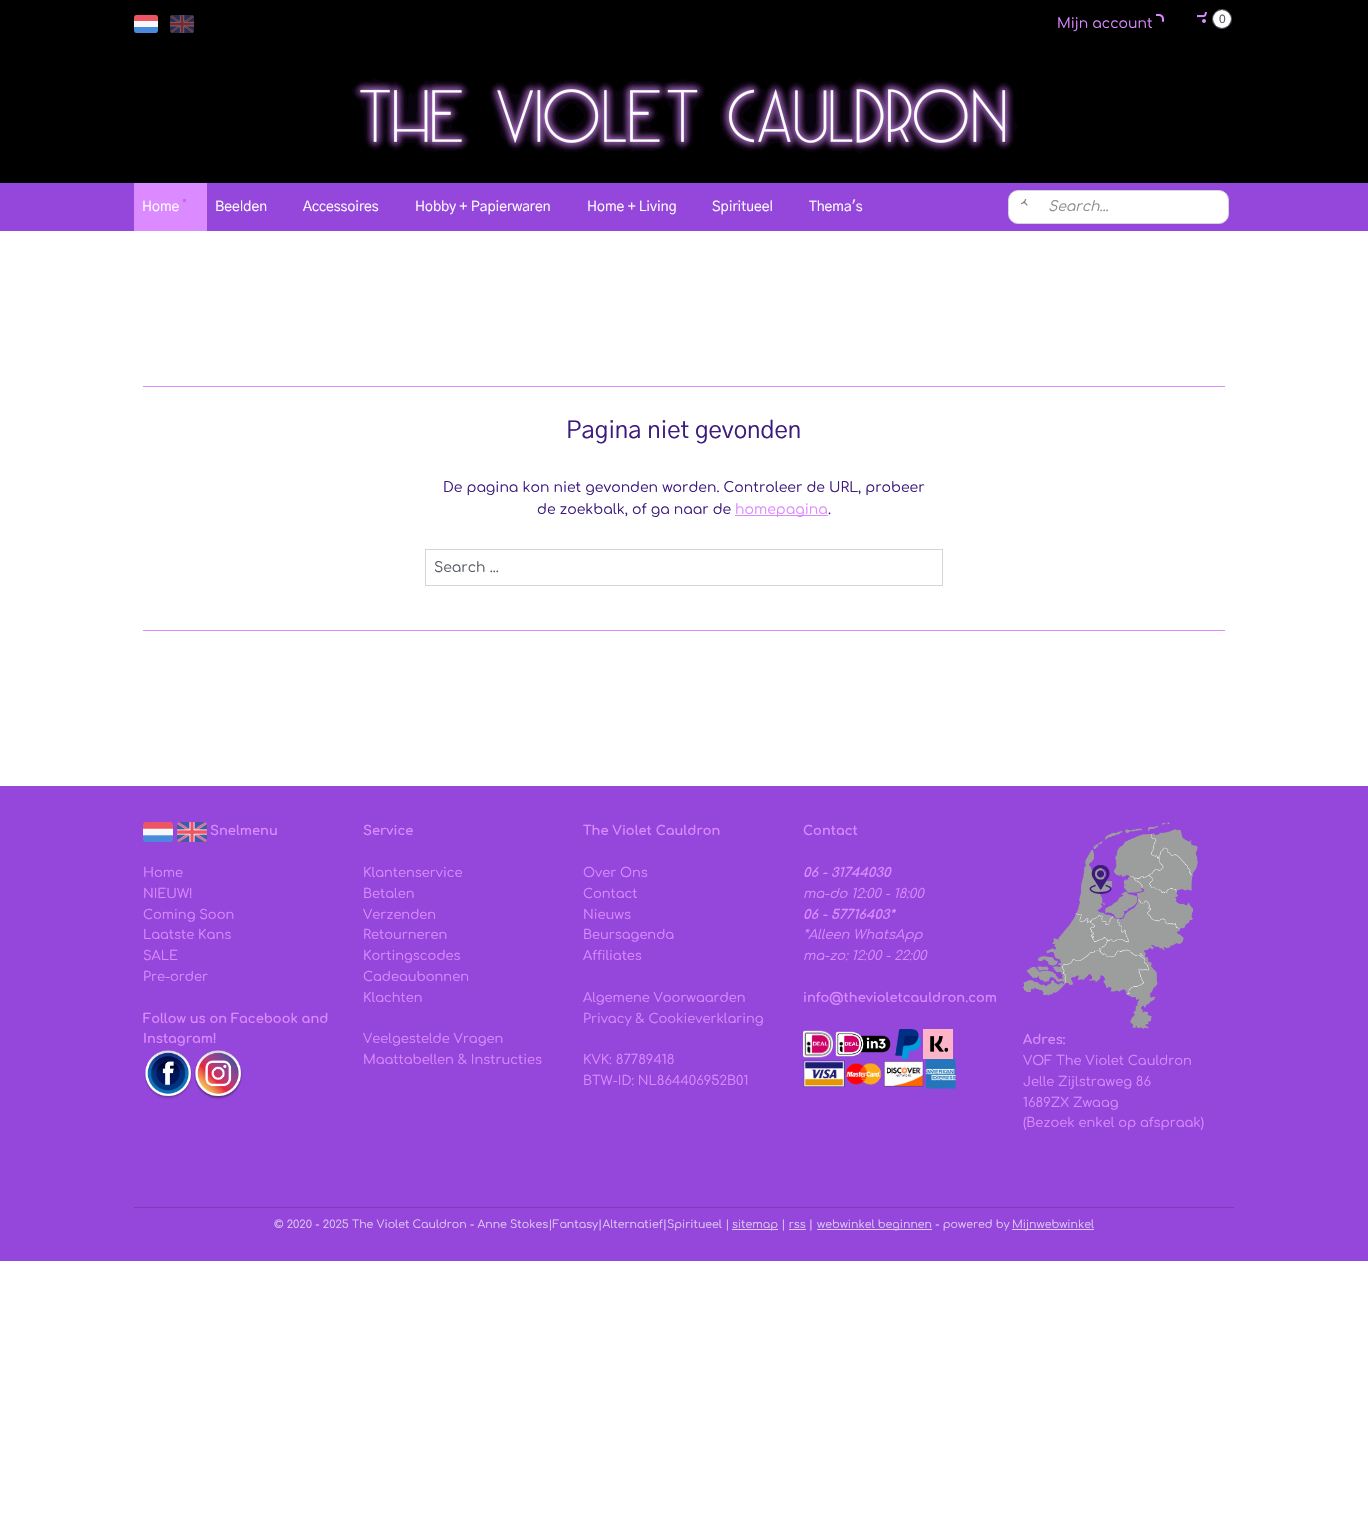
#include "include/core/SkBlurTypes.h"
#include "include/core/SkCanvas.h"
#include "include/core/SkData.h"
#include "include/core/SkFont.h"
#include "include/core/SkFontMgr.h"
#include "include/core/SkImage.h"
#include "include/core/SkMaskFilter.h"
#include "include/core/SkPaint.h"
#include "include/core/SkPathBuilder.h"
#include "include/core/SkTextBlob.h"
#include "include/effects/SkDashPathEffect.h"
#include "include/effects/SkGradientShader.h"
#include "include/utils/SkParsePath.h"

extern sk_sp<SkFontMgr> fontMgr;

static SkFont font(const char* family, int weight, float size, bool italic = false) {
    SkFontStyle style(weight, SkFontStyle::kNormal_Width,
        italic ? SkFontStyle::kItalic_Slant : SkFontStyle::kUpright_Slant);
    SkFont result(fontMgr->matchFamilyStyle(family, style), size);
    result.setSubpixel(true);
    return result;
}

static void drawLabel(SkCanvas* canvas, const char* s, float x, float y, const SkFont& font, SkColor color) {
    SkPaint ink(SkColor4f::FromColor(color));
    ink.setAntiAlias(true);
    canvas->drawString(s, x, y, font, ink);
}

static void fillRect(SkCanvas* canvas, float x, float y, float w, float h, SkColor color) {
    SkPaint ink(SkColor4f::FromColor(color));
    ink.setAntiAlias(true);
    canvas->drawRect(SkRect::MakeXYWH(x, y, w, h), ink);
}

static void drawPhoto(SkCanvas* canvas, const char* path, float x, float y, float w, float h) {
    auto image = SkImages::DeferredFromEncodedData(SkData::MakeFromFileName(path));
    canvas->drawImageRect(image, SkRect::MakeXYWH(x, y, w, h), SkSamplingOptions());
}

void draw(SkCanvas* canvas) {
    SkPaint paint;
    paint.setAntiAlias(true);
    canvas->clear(0xFFFFFFFF);
    fillRect(canvas, 0, 0, 1368, 183, 0xFF000000);
    drawPhoto(canvas, "assets/img1.png", 134, 15, 24, 18);
    drawPhoto(canvas, "assets/img2.png", 170, 15, 24, 18);
    SkFont font1 = font("Comfortaa", 400, 14);
    drawLabel(canvas, "Mijn account", 1057, 28, font1, 0xFFDB8AFF);
    drawPhoto(canvas, "assets/img3.png", 1156, 14, 8, 8);
    drawPhoto(canvas, "assets/img4.png", 1197, 12, 10, 11);
    paint.setStroke(true);
    paint.setStrokeWidth(1);
    paint.setColor(0xFF575B62);
    canvas->drawCircle(1222, 19, 9.5f, paint);
    paint.setStroke(false);
    paint.setColor(0xFFFFFFFF);
    canvas->drawCircle(1222, 19, 9, paint);
    SkFont font2 = font("Liberation Sans", 400, 12);
    drawLabel(canvas, "0", 1219, 23, font2, 0xFF575B62);
    drawPhoto(canvas, "assets/img5.png", 352, 79, 665, 74);
    fillRect(canvas, 0, 183, 1368, 48, 0xFF9547DB);
    fillRect(canvas, 134, 183, 73, 48, 0xFFDB8AFF);
    SkFont font3 = font("Gothic A1", 400, 14);
    drawLabel(canvas, "Home", 142, 211, font3, 0xFFFFFFFF);
    fillRect(canvas, 183, 199, 3, 3, 0xFFBC6CEF);
    drawLabel(canvas, "Beelden", 215, 211, font3, 0xFFFFFFFF);
    drawLabel(canvas, "Accessoires", 303, 211, font3, 0xFFFFFFFF);
    drawLabel(canvas, "Hobby + Papierwaren", 415, 211, font3, 0xFFFFFFFF);
    drawLabel(canvas, "Home + Living", 587, 211, font3, 0xFFFFFFFF);
    drawLabel(canvas, "Spiritueel", 712, 211, font3, 0xFFFFFFFF);
    drawLabel(canvas, "Thema's", 809, 211, font3, 0xFFFFFFFF);
    canvas->drawRoundRect(SkRect::MakeXYWH(1008.5f, 190.5f, 220, 33), 9.5f, 9.5f, paint);
    paint.setStroke(true);
    paint.setColor(0xFFD3D5D9);
    canvas->drawRoundRect(SkRect::MakeXYWH(1008.5f, 190.5f, 220, 33), 9.5f, 9.5f, paint);
    drawPhoto(canvas, "assets/img6.png", 1021, 199, 7, 7);
    SkFont font4 = font("Comfortaa", 400, 14, true);
    drawLabel(canvas, "Search...", 1048, 211, font4, 0xFF898C91);
    fillRect(canvas, 143, 386, 1082, 1, 0xFFDB8AFF);
    fillRect(canvas, 143, 630, 1082, 1, 0xFFDB8AFF);
    SkFont font5 = font("Gothic A1", 400, 24);
    drawLabel(canvas, "Pagina niet gevonden", 566, 438, font5, 0xFF3D1B7D);
    drawLabel(canvas, "De pagina kon niet gevonden worden. Controleer de URL, probeer", 443, 492, font1, 0xFF3D1B7D);
    drawLabel(canvas, "de zoekbalk, of ga naar de", 537, 514, font1, 0xFF3D1B7D);
    fillRect(canvas, 735, 515, 93, 1, 0xFFDB8AFF);
    drawLabel(canvas, "homepagina", 735, 514, font1, 0xFFDB8AFF);
    drawLabel(canvas, ".", 828, 514, font1, 0xFF3D1B7D);
    canvas->drawRect(SkRect::MakeXYWH(425.5f, 549.5f, 517, 36), paint);
    drawLabel(canvas, "Search ...", 434, 572, font1, 0xFF575B62);
    fillRect(canvas, 0, 786, 1368, 475, 0xFF9547DB);
    drawPhoto(canvas, "assets/img7.png", 143, 822, 30, 20);
    drawPhoto(canvas, "assets/img8.png", 177, 822, 30, 20);
    SkFont font6 = font("Comfortaa", 700, 13);
    drawLabel(canvas, "Snelmenu", 210, 835, font6, 0xFFDB8AFF);
    SkFont font7 = font("Comfortaa", 400, 13);
    drawLabel(canvas, "Home", 143, 877, font7, 0xFFDB8AFF);
    drawLabel(canvas, "NIEUW!", 143, 898, font7, 0xFFDB8AFF);
    drawLabel(canvas, "Coming Soon", 143, 919, font7, 0xFFDB8AFF);
    drawLabel(canvas, "Laatste Kans", 143, 939, font7, 0xFFDB8AFF);
    drawLabel(canvas, "SALE", 143, 960, font7, 0xFFDB8AFF);
    drawLabel(canvas, "Pre-order", 143, 981, font7, 0xFFDB8AFF);
    drawLabel(canvas, "Follow us on Facebook and", 143, 1023, font6, 0xFFDB8AFF);
    drawLabel(canvas, "Instagram!", 143, 1043, font6, 0xFFDB8AFF);
    drawPhoto(canvas, "assets/img9.png", 144, 1050, 48, 49);
    drawPhoto(canvas, "assets/img10.png", 194, 1050, 49, 50);
    drawLabel(canvas, "Service", 363, 835, font6, 0xFFDB8AFF);
    drawLabel(canvas, "Klantenservice", 363, 877, font7, 0xFFDB8AFF);
    drawLabel(canvas, "Betalen", 363, 898, font7, 0xFFDB8AFF);
    drawLabel(canvas, "Verzenden", 363, 919, font7, 0xFFDB8AFF);
    drawLabel(canvas, "Retourneren", 363, 939, font7, 0xFFDB8AFF);
    drawLabel(canvas, "Kortingscodes", 363, 960, font7, 0xFFDB8AFF);
    drawLabel(canvas, "Cadeaubonnen", 363, 981, font7, 0xFFDB8AFF);
    drawLabel(canvas, "Klachten", 363, 1002, font7, 0xFFDB8AFF);
    drawLabel(canvas, "Veelgestelde Vragen", 363, 1043, font7, 0xFFDB8AFF);
    drawLabel(canvas, "Maattabellen & Instructies", 363, 1064, font7, 0xFFDB8AFF);
    drawLabel(canvas, "The Violet Cauldron", 583, 835, font6, 0xFFDB8AFF);
    drawLabel(canvas, "Over Ons", 583, 877, font7, 0xFFDB8AFF);
    drawLabel(canvas, "Contact", 583, 898, font7, 0xFFDB8AFF);
    drawLabel(canvas, "Nieuws", 583, 919, font7, 0xFFDB8AFF);
    drawLabel(canvas, "Beursagenda", 583, 939, font7, 0xFFDB8AFF);
    drawLabel(canvas, "Affiliates", 583, 960, font7, 0xFFDB8AFF);
    drawLabel(canvas, "Algemene Voorwaarden", 583, 1002, font7, 0xFFDB8AFF);
    drawLabel(canvas, "Privacy & Cookieverklaring", 583, 1023, font7, 0xFFDB8AFF);
    drawLabel(canvas, "KVK: 87789418", 583, 1064, font7, 0xFFDB8AFF);
    drawLabel(canvas, "BTW-ID: NL864406952B01", 583, 1085, font7, 0xFFDB8AFF);
    drawLabel(canvas, "Contact", 803, 835, font6, 0xFFDB8AFF);
    SkFont font8 = font("Comfortaa", 700, 13, true);
    drawLabel(canvas, "06 - 31744030", 803, 877, font8, 0xFFDB8AFF);
    SkFont font9 = font("Comfortaa", 400, 13, true);
    drawLabel(canvas, "ma-do 12:00 - 18:00", 803, 898, font9, 0xFFDB8AFF);
    drawLabel(canvas, "06 - 57716403*", 803, 919, font8, 0xFFDB8AFF);
    drawLabel(canvas, "*Alleen WhatsApp", 803, 939, font9, 0xFFDB8AFF);
    drawLabel(canvas, "ma-zo: 12:00 - 22:00", 803, 960, font9, 0xFFDB8AFF);
    drawLabel(canvas, "info@thevioletcauldron.com", 803, 1002, font6, 0xFFDB8AFF);
    drawPhoto(canvas, "assets/img11.png", 803, 1030, 30, 28);
    drawPhoto(canvas, "assets/img12.png", 835, 1031, 56, 26);
    drawPhoto(canvas, "assets/img13.png", 895, 1029, 26, 30);
    drawPhoto(canvas, "assets/img14.png", 923, 1029, 30, 30);
    drawPhoto(canvas, "assets/img15.png", 803, 1059, 153, 30);
    drawPhoto(canvas, "assets/img16.png", 1023, 822, 175, 207);
    drawLabel(canvas, "Adres:", 1023, 1044, font6, 0xFFDB8AFF);
    drawLabel(canvas, "VOF The Violet Cauldron", 1023, 1065, font7, 0xFFDB8AFF);
    drawLabel(canvas, "Jelle Zijlstraweg 86", 1023, 1086, font7, 0xFFDB8AFF);
    drawLabel(canvas, "1689ZX Zwaag", 1023, 1107, font7, 0xFFDB8AFF);
    drawLabel(canvas, "(Bezoek enkel op afspraak)", 1023, 1127, font7, 0xFFDB8AFF);
    fillRect(canvas, 134, 1207, 1100, 1, 0xFF7F3CBA);
    SkFont font10 = font("Comfortaa", 400, 11);
    drawLabel(canvas, "© 2020 - 2025 The Violet Cauldron - Anne Stokes|Fantasy|Alternatief|Spiritueel |", 274, 1228, font10, 0xFFDFC8F4);
    fillRect(canvas, 732, 1229, 46, 1, 0xFFDFC8F4);
    drawLabel(canvas, "sitemap | rss |", 732, 1228, font10, 0xFFDFC8F4);
    fillRect(canvas, 817, 1229, 115, 1, 0xFFDFC8F4);
    drawLabel(canvas, "webwinkel beginnen - powered by", 817, 1228, font10, 0xFFDFC8F4);
    fillRect(canvas, 1012, 1229, 82, 1, 0xFFDFC8F4);
    drawLabel(canvas, "Mijnwebwinkel", 1012, 1228, font10, 0xFFDFC8F4);
    fillRect(canvas, 789, 1229, 17, 1, 0xFFDFC8F4);
}
